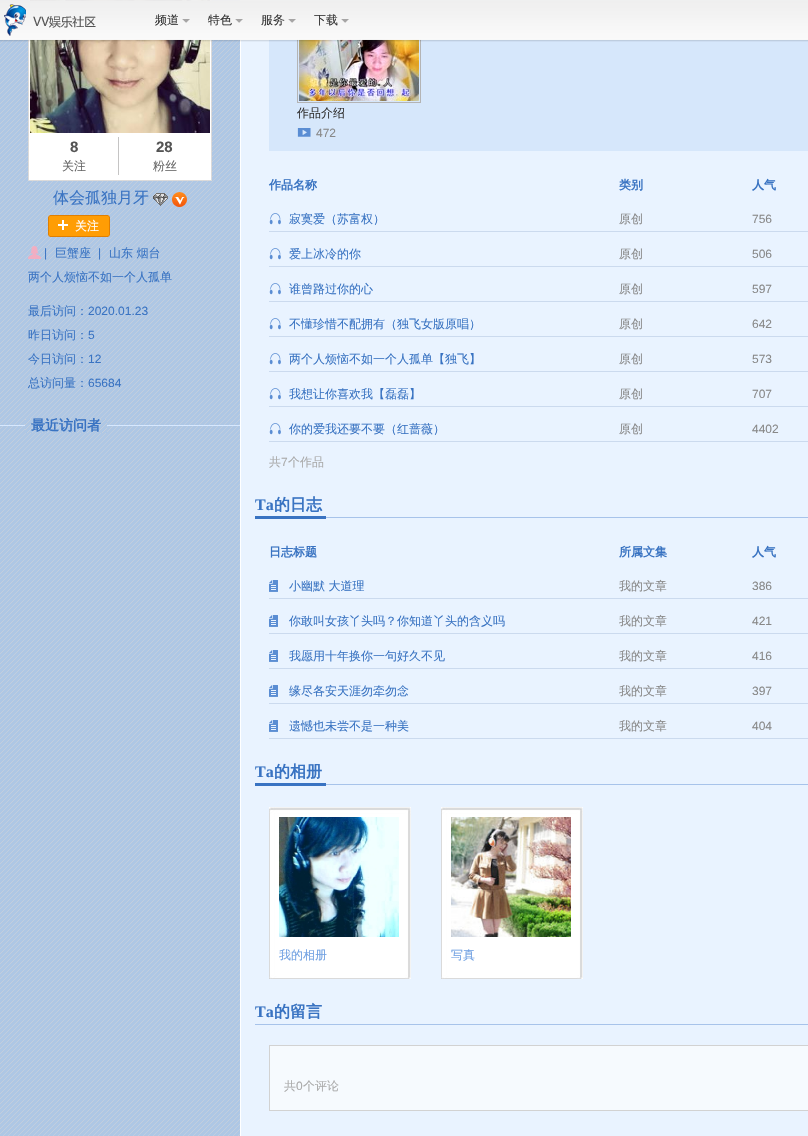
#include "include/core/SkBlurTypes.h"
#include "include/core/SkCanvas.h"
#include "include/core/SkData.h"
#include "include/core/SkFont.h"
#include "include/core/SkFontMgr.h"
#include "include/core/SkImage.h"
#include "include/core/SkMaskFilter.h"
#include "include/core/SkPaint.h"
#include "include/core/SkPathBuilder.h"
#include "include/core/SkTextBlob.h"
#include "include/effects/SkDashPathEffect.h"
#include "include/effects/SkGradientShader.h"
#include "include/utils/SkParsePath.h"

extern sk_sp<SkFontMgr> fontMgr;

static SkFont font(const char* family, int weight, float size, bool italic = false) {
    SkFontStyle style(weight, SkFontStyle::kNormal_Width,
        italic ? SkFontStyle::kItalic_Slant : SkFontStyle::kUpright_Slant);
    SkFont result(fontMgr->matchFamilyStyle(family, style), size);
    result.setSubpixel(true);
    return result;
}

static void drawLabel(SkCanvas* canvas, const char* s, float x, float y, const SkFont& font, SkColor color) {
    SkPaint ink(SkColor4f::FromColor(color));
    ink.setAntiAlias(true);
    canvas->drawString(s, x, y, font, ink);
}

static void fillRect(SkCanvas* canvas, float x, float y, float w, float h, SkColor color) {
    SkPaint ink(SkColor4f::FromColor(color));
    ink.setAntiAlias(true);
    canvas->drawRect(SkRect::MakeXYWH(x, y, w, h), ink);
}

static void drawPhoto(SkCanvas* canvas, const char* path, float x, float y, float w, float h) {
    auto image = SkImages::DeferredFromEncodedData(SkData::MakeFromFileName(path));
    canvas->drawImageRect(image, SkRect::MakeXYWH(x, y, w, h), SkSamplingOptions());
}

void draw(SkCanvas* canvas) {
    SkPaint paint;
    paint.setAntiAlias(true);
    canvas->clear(0xFFFFFFFF);
    drawPhoto(canvas, "assets/img4.png", 0, 0, 240, 1136);
    paint.setColor(0xFFFFFFFF);
    canvas->drawRect(SkRect::MakeXYWH(28.5f, -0.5f, 183, 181), paint);
    paint.setStroke(true);
    paint.setStrokeWidth(1);
    paint.setColor(0xFFDBDADA);
    canvas->drawRect(SkRect::MakeXYWH(28.5f, -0.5f, 183, 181), paint);
    drawPhoto(canvas, "assets/img5.png", 30, 0, 180, 133);
    fillRect(canvas, 241, 0, 567, 1136, 0xFFE9F3FF);
    fillRect(canvas, 269, 0, 539, 151, 0xFFD6E7FB);
    paint.setColor(0xFFB4B4B4);
    canvas->drawRect(SkRect::MakeXYWH(297.5f, 19.5f, 123, 83), paint);
    drawPhoto(canvas, "assets/img12.png", 299, 39, 120, 62);
    drawPhoto(canvas, "assets/img1.png", 0, 0, 808, 42);
    drawPhoto(canvas, "assets/img2.png", 4, 4, 92, 32);
    SkFont font1 = font("WenQuanYi Zen Hei", 500, 12);
    drawLabel(canvas, "频道", 155, 24, font1, 0xFF333333);
    drawPhoto(canvas, "assets/img3.png", 182, 19, 8, 4);
    drawLabel(canvas, "特色", 208, 24, font1, 0xFF333333);
    drawPhoto(canvas, "assets/img3.png", 235, 19, 8, 4);
    drawLabel(canvas, "服务", 261, 24, font1, 0xFF333333);
    drawPhoto(canvas, "assets/img3.png", 288, 19, 8, 4);
    drawLabel(canvas, "下载", 314, 24, font1, 0xFF333333);
    drawPhoto(canvas, "assets/img3.png", 341, 19, 8, 4);
    SkFont font2 = font("Liberation Sans", 700, 15);
    drawLabel(canvas, "8", 70, 152, font2, 0xFF545454);
    drawLabel(canvas, "关注", 62, 170, font1, 0xFF666666);
    fillRect(canvas, 118, 137, 1, 38, 0xFFC5C4C4);
    drawLabel(canvas, "28", 156, 152, font2, 0xFF545454);
    drawLabel(canvas, "粉丝", 153, 170, font1, 0xFF666666);
    SkFont font3 = font("WenQuanYi Zen Hei", 500, 16);
    drawLabel(canvas, "体会孤独月牙", 53, 203, font3, 0xFF3973C2);
    drawPhoto(canvas, "assets/img6.png", 153, 193, 15, 13);
    drawPhoto(canvas, "assets/img7.png", 172, 192, 15, 15);
    drawPhoto(canvas, "assets/img8.png", 48, 215, 62, 22);
    drawPhoto(canvas, "assets/img9.png", 58, 220, 10, 10);
    drawLabel(canvas, "关注", 75, 230, font1, 0xFFFFFFFF);
    drawPhoto(canvas, "assets/img10.png", 28, 246, 13, 13);
    SkFont font4 = font("Liberation Sans", 400, 12);
    drawLabel(canvas, "|", 44, 257, font4, 0xFF3973C2);
    drawLabel(canvas, "巨蟹座", 55, 257, font1, 0xFF3973C2);
    drawLabel(canvas, "|", 98, 257, font4, 0xFF3973C2);
    drawLabel(canvas, "山东 烟台", 109, 257, font1, 0xFF3973C2);
    drawLabel(canvas, "两个人烦恼不如一个人孤单", 28, 281, font1, 0xFF3973C2);
    drawLabel(canvas, "最后访问：", 28, 315, font1, 0xFF3973C2);
    drawLabel(canvas, "2020.01.23", 88, 315, font4, 0xFF3973C2);
    drawLabel(canvas, "昨日访问：", 28, 339, font1, 0xFF3973C2);
    drawLabel(canvas, "5", 88, 339, font4, 0xFF3973C2);
    drawLabel(canvas, "今日访问：", 28, 363, font1, 0xFF3973C2);
    drawLabel(canvas, "12", 88, 363, font4, 0xFF3973C2);
    drawLabel(canvas, "总访问量：", 28, 387, font1, 0xFF3973C2);
    drawLabel(canvas, "65684", 88, 387, font4, 0xFF3973C2);
    fillRect(canvas, 0, 425, 240, 1, 0xFFD6E8FF);
    drawPhoto(canvas, "assets/img11.png", 25, 419, 82, 14);
    SkFont font5 = font("WenQuanYi Zen Hei", 700, 14);
    drawLabel(canvas, "最近访问者", 31, 430, font5, 0xFF3973C2);
    drawLabel(canvas, "作品介绍", 297, 117, font1, 0xFF333333);
    drawPhoto(canvas, "assets/img13.png", 297, 128, 14, 9);
    drawLabel(canvas, "472", 316, 137, font4, 0xFF888888);
    SkFont font6 = font("WenQuanYi Zen Hei", 700, 12);
    drawLabel(canvas, "作品名称", 269, 189, font6, 0xFF3973C2);
    drawLabel(canvas, "类别", 619, 189, font6, 0xFF3973C2);
    drawLabel(canvas, "人气", 752, 189, font6, 0xFF3973C2);
    fillRect(canvas, 269, 231, 539, 1, 0xFFCBDAEE);
    drawPhoto(canvas, "assets/img14.png", 269, 213, 12, 12);
    drawLabel(canvas, "寂寞爱（苏富权）", 289, 223, font1, 0xFF3973C2);
    drawLabel(canvas, "原创", 619, 223, font1, 0xFF888888);
    drawLabel(canvas, "756", 752, 223, font4, 0xFF888888);
    fillRect(canvas, 269, 266, 539, 1, 0xFFCBDAEE);
    drawPhoto(canvas, "assets/img14.png", 269, 248, 12, 12);
    drawLabel(canvas, "爱上冰冷的你", 289, 258, font1, 0xFF3973C2);
    drawLabel(canvas, "原创", 619, 258, font1, 0xFF888888);
    drawLabel(canvas, "506", 752, 258, font4, 0xFF888888);
    fillRect(canvas, 269, 301, 539, 1, 0xFFCBDAEE);
    drawPhoto(canvas, "assets/img14.png", 269, 283, 12, 12);
    drawLabel(canvas, "谁曾路过你的心", 289, 293, font1, 0xFF3973C2);
    drawLabel(canvas, "原创", 619, 293, font1, 0xFF888888);
    drawLabel(canvas, "597", 752, 293, font4, 0xFF888888);
    fillRect(canvas, 269, 336, 539, 1, 0xFFCBDAEE);
    drawPhoto(canvas, "assets/img14.png", 269, 318, 12, 12);
    drawLabel(canvas, "不懂珍惜不配拥有（独飞女版原唱）", 289, 328, font1, 0xFF3973C2);
    drawLabel(canvas, "原创", 619, 328, font1, 0xFF888888);
    drawLabel(canvas, "642", 752, 328, font4, 0xFF888888);
    fillRect(canvas, 269, 371, 539, 1, 0xFFCBDAEE);
    drawPhoto(canvas, "assets/img14.png", 269, 353, 12, 12);
    drawLabel(canvas, "两个人烦恼不如一个人孤单【独飞】", 289, 363, font1, 0xFF3973C2);
    drawLabel(canvas, "原创", 619, 363, font1, 0xFF888888);
    drawLabel(canvas, "573", 752, 363, font4, 0xFF888888);
    fillRect(canvas, 269, 406, 539, 1, 0xFFCBDAEE);
    drawPhoto(canvas, "assets/img14.png", 269, 388, 12, 12);
    drawLabel(canvas, "我想让你喜欢我【磊磊】", 289, 398, font1, 0xFF3973C2);
    drawLabel(canvas, "原创", 619, 398, font1, 0xFF888888);
    drawLabel(canvas, "707", 752, 398, font4, 0xFF888888);
    fillRect(canvas, 269, 441, 539, 1, 0xFFCBDAEE);
    drawPhoto(canvas, "assets/img14.png", 269, 423, 12, 12);
    drawLabel(canvas, "你的爱我还要不要（红蔷薇）", 289, 433, font1, 0xFF3973C2);
    drawLabel(canvas, "原创", 619, 433, font1, 0xFF888888);
    drawLabel(canvas, "4402", 752, 433, font4, 0xFF888888);
    drawLabel(canvas, "共", 269, 466, font1, 0xFFAAAAAA);
    drawLabel(canvas, "7", 281, 466, font4, 0xFFAAAAAA);
    drawLabel(canvas, "个作品", 288, 466, font1, 0xFFAAAAAA);
    fillRect(canvas, 326, 517, 482, 1, 0xFFA7C3EA);
    SkFont font7 = font("Liberation Serif", 700, 16);
    drawLabel(canvas, "Ta", 255, 510, font7, 0xFF3973C2);
    SkFont font8 = font("WenQuanYi Zen Hei", 700, 16);
    drawLabel(canvas, "的日志", 274, 510, font8, 0xFF3973C2);
    fillRect(canvas, 255, 516, 71, 3, 0xFF3973C2);
    drawLabel(canvas, "日志标题", 269, 556, font6, 0xFF3973C2);
    drawLabel(canvas, "所属文集", 619, 556, font6, 0xFF3973C2);
    drawLabel(canvas, "人气", 752, 556, font6, 0xFF3973C2);
    fillRect(canvas, 269, 598, 539, 1, 0xFFCBDAEE);
    drawPhoto(canvas, "assets/img15.png", 269, 580, 9, 12);
    drawLabel(canvas, "小幽默 大道理", 289, 590, font1, 0xFF3973C2);
    drawLabel(canvas, "我的文章", 619, 590, font1, 0xFF888888);
    drawLabel(canvas, "386", 752, 590, font4, 0xFF888888);
    fillRect(canvas, 269, 633, 539, 1, 0xFFCBDAEE);
    drawPhoto(canvas, "assets/img15.png", 269, 615, 9, 12);
    drawLabel(canvas, "你敢叫女孩丫头吗？你知道丫头的含义吗", 289, 625, font1, 0xFF3973C2);
    drawLabel(canvas, "我的文章", 619, 625, font1, 0xFF888888);
    drawLabel(canvas, "421", 752, 625, font4, 0xFF888888);
    fillRect(canvas, 269, 668, 539, 1, 0xFFCBDAEE);
    drawPhoto(canvas, "assets/img15.png", 269, 650, 9, 12);
    drawLabel(canvas, "我愿用十年换你一句好久不见", 289, 660, font1, 0xFF3973C2);
    drawLabel(canvas, "我的文章", 619, 660, font1, 0xFF888888);
    drawLabel(canvas, "416", 752, 660, font4, 0xFF888888);
    fillRect(canvas, 269, 703, 539, 1, 0xFFCBDAEE);
    drawPhoto(canvas, "assets/img15.png", 269, 685, 9, 12);
    drawLabel(canvas, "缘尽各安天涯勿牵勿念", 289, 695, font1, 0xFF3973C2);
    drawLabel(canvas, "我的文章", 619, 695, font1, 0xFF888888);
    drawLabel(canvas, "397", 752, 695, font4, 0xFF888888);
    fillRect(canvas, 269, 738, 539, 1, 0xFFCBDAEE);
    drawPhoto(canvas, "assets/img15.png", 269, 720, 9, 12);
    drawLabel(canvas, "遗憾也未尝不是一种美", 289, 730, font1, 0xFF3973C2);
    drawLabel(canvas, "我的文章", 619, 730, font1, 0xFF888888);
    drawLabel(canvas, "404", 752, 730, font4, 0xFF888888);
    fillRect(canvas, 326, 784, 482, 1, 0xFFA7C3EA);
    drawLabel(canvas, "Ta", 255, 777, font7, 0xFF3973C2);
    drawLabel(canvas, "的相册", 274, 777, font8, 0xFF3973C2);
    fillRect(canvas, 255, 783, 71, 3, 0xFF3973C2);
    drawPhoto(canvas, "assets/img16.png", 269, 807, 142, 172);
    drawPhoto(canvas, "assets/img17.png", 279, 817, 120, 120);
    drawLabel(canvas, "我的相册", 279, 959, font1, 0xFF71A1E2);
    drawPhoto(canvas, "assets/img16.png", 441, 807, 142, 172);
    drawPhoto(canvas, "assets/img18.png", 451, 817, 120, 120);
    drawLabel(canvas, "写真", 451, 959, font1, 0xFF71A1E2);
    fillRect(canvas, 255, 1024, 553, 1, 0xFFA7C3EA);
    drawLabel(canvas, "Ta", 255, 1017, font7, 0xFF3973C2);
    drawLabel(canvas, "的留言", 274, 1017, font8, 0xFF3973C2);
    paint.setStroke(false);
    paint.setColor(0xFFF6FAFE);
    canvas->drawRect(SkRect::MakeXYWH(269.5f, 1045.5f, 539, 65), paint);
    paint.setStroke(true);
    paint.setColor(0xFFD2D2D2);
    canvas->drawRect(SkRect::MakeXYWH(269.5f, 1045.5f, 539, 65), paint);
    drawLabel(canvas, "共", 284, 1090, font1, 0xFFAAAAAA);
    drawLabel(canvas, "0", 296, 1090, font4, 0xFFAAAAAA);
    drawLabel(canvas, "个评论", 303, 1090, font1, 0xFFAAAAAA);
}
